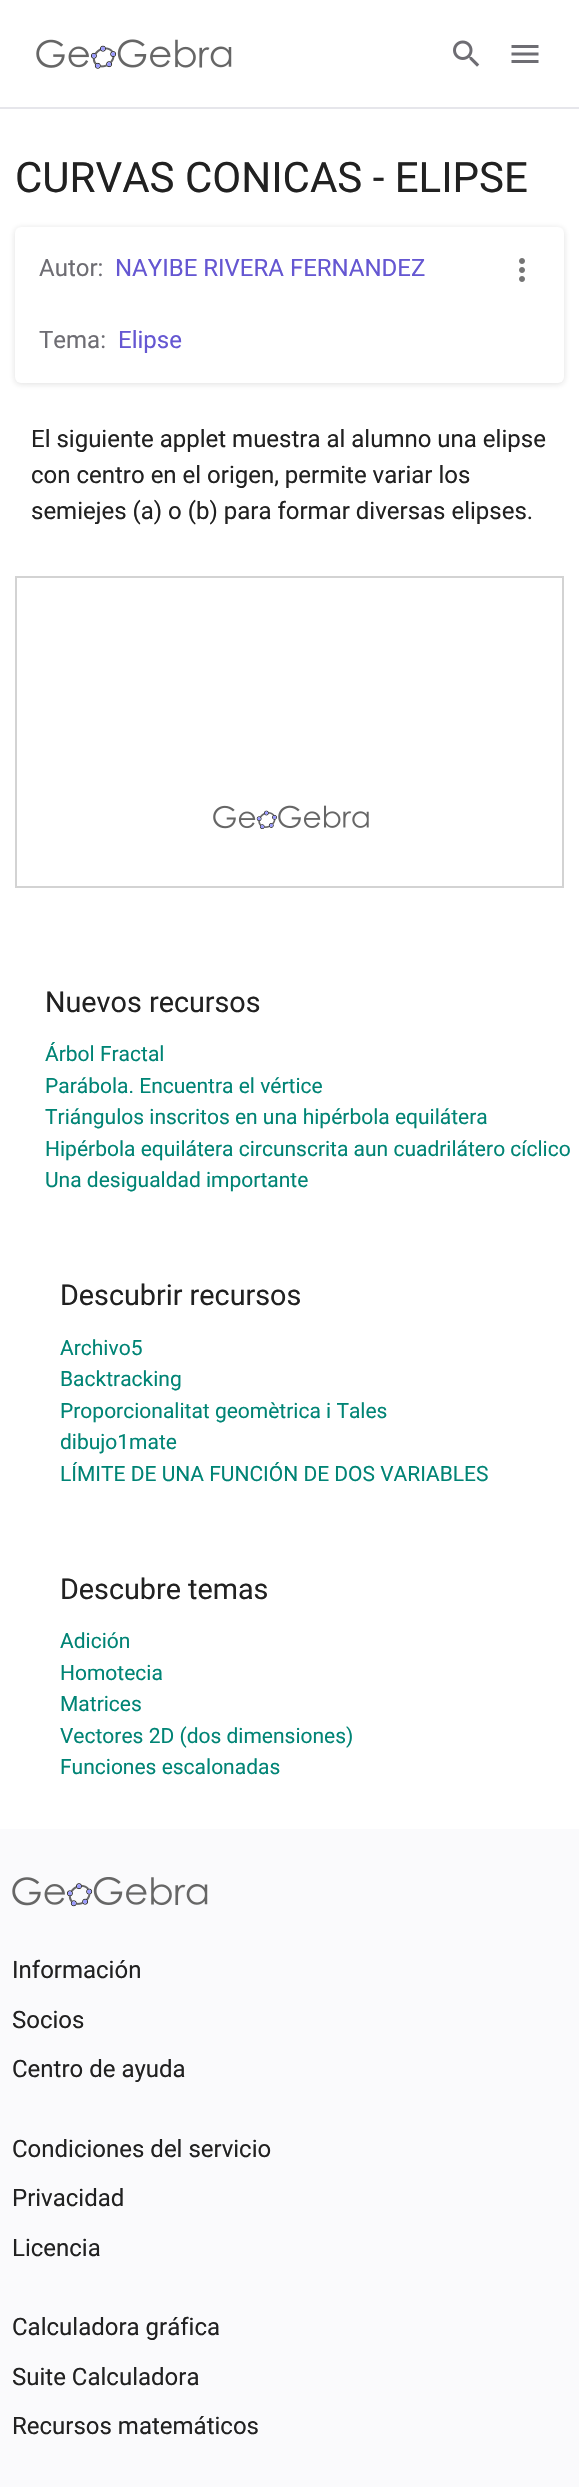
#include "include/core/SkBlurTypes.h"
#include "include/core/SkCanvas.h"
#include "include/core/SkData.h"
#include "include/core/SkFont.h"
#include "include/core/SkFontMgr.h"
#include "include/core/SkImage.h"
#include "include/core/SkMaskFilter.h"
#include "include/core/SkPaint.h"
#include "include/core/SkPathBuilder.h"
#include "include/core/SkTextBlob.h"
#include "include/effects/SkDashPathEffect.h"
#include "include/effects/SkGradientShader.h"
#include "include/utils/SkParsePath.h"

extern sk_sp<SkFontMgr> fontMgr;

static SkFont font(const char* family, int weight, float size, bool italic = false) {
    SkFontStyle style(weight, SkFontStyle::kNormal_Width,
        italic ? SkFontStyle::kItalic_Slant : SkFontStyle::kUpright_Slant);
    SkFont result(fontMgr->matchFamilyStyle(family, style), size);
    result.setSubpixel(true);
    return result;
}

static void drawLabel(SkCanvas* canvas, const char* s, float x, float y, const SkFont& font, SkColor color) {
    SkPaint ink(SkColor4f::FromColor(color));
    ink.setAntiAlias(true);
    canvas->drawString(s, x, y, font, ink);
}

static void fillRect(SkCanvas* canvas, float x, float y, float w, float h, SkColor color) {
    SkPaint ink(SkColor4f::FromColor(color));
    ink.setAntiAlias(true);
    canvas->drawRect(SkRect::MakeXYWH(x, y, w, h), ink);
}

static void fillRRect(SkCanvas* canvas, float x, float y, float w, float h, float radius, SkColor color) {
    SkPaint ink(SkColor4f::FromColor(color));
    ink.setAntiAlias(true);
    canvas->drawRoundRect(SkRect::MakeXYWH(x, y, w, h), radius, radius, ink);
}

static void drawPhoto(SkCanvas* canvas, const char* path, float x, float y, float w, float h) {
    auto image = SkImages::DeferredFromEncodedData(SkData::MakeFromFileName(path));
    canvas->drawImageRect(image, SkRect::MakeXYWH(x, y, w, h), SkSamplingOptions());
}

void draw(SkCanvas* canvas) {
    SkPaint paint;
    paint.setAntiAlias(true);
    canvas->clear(0xFFFFFFFF);
    fillRect(canvas, 0, 107, 579, 2, 0xFFE6E6EB);
    drawPhoto(canvas, "assets/img1.png", 36, 39, 196, 30);
    drawPhoto(canvas, "assets/img2.png", 453, 40, 27, 27);
    drawPhoto(canvas, "assets/img3.png", 511, 45, 28, 18);
    SkFont font1 = font("Roboto", 400, 42);
    drawLabel(canvas, "CURVAS CONICAS - ELIPSE", 15, 192, font1, 0xFF212121);
    paint.setColor(0x241C1C1F);
    paint.setMaskFilter(SkMaskFilter::MakeBlur(kNormal_SkBlurStyle, 3));
    canvas->drawRoundRect(SkRect::MakeXYWH(15, 228, 549, 156), 6, 6, paint);
    paint.setMaskFilter(nullptr);
    fillRRect(canvas, 15, 227, 549, 156, 6, 0xFFFFFFFF);
    SkFont font2 = font("Roboto", 400, 24);
    drawLabel(canvas, "Autor:", 39, 276, font2, 0xFF6E6D73);
    drawLabel(canvas, "NAYIBE RIVERA FERNANDEZ", 115, 276, font2, 0xFF6557D2);
    drawLabel(canvas, "Tema:", 39, 348, font2, 0xFF6E6D73);
    drawLabel(canvas, "Elipse", 118, 348, font2, 0xFF6557D2);
    drawPhoto(canvas, "assets/img4.png", 519, 258, 6, 24);
    drawLabel(canvas, "El siguiente applet muestra al alumno una elipse", 31, 447, font2, 0xFF212121);
    drawLabel(canvas, "con centro en el origen, permite variar los", 31, 483, font2, 0xFF212121);
    drawLabel(canvas, "semiejes (a) o (b) para formar diversas elipses.", 31, 519, font2, 0xFF212121);
    drawPhoto(canvas, "assets/img5.png", 213, 805, 156, 24);
    paint.setStroke(true);
    paint.setStrokeWidth(2);
    paint.setColor(0xFFD3D3D3);
    canvas->drawRect(SkRect::MakeXYWH(16, 577, 547, 310), paint);
    SkFont font3 = font("Roboto", 400, 28.75f);
    drawLabel(canvas, "Nuevos recursos", 45, 1012, font3, 0xFF212121);
    SkFont font4 = font("Roboto", 400, 21);
    drawLabel(canvas, "Árbol Fractal", 45, 1061, font4, 0xFF008475);
    drawLabel(canvas, "Parábola. Encuentra el vértice", 45, 1093, font4, 0xFF008475);
    drawLabel(canvas, "Triángulos inscritos en una hipérbola equilátera", 45, 1124, font4, 0xFF008475);
    drawLabel(canvas, "Hipérbola equilátera circunscrita aun cuadrilátero cíclico", 45, 1156, font4, 0xFF008475);
    drawLabel(canvas, "Una desigualdad importante", 45, 1187, font4, 0xFF008475);
    drawLabel(canvas, "Descubrir recursos", 60, 1305, font3, 0xFF212121);
    drawLabel(canvas, "Archivo5", 60, 1355, font4, 0xFF008475);
    drawLabel(canvas, "Backtracking", 60, 1386, font4, 0xFF008475);
    drawLabel(canvas, "Proporcionalitat geomètrica i Tales", 60, 1418, font4, 0xFF008475);
    drawLabel(canvas, "dibujo1mate", 60, 1449, font4, 0xFF008475);
    drawLabel(canvas, "LÍMITE DE UNA FUNCIÓN DE DOS VARIABLES", 60, 1481, font4, 0xFF008475);
    drawLabel(canvas, "Descubre temas", 60, 1599, font3, 0xFF212121);
    drawLabel(canvas, "Adición", 60, 1648, font4, 0xFF008475);
    drawLabel(canvas, "Homotecia", 60, 1680, font4, 0xFF008475);
    drawLabel(canvas, "Matrices", 60, 1711, font4, 0xFF008475);
    drawLabel(canvas, "Vectores 2D (dos dimensiones)", 60, 1743, font4, 0xFF008475);
    drawLabel(canvas, "Funciones escalonadas", 60, 1774, font4, 0xFF008475);
    fillRect(canvas, 0, 1829, 579, 658, 0xFFFAFAFC);
    drawPhoto(canvas, "assets/img6.png", 12, 1877, 196, 30);
    drawLabel(canvas, "Información", 12, 1978, font2, 0xFF212121);
    drawLabel(canvas, "Socios", 12, 2028, font2, 0xFF212121);
    drawLabel(canvas, "Centro de ayuda", 12, 2077, font2, 0xFF212121);
    drawLabel(canvas, "Condiciones del servicio", 12, 2157, font2, 0xFF212121);
    drawLabel(canvas, "Privacidad", 12, 2206, font2, 0xFF212121);
    drawLabel(canvas, "Licencia", 12, 2256, font2, 0xFF212121);
    drawLabel(canvas, "Calculadora gráfica", 12, 2335, font2, 0xFF212121);
    drawLabel(canvas, "Suite Calculadora", 12, 2385, font2, 0xFF212121);
    drawLabel(canvas, "Recursos matemáticos", 12, 2434, font2, 0xFF212121);
}
